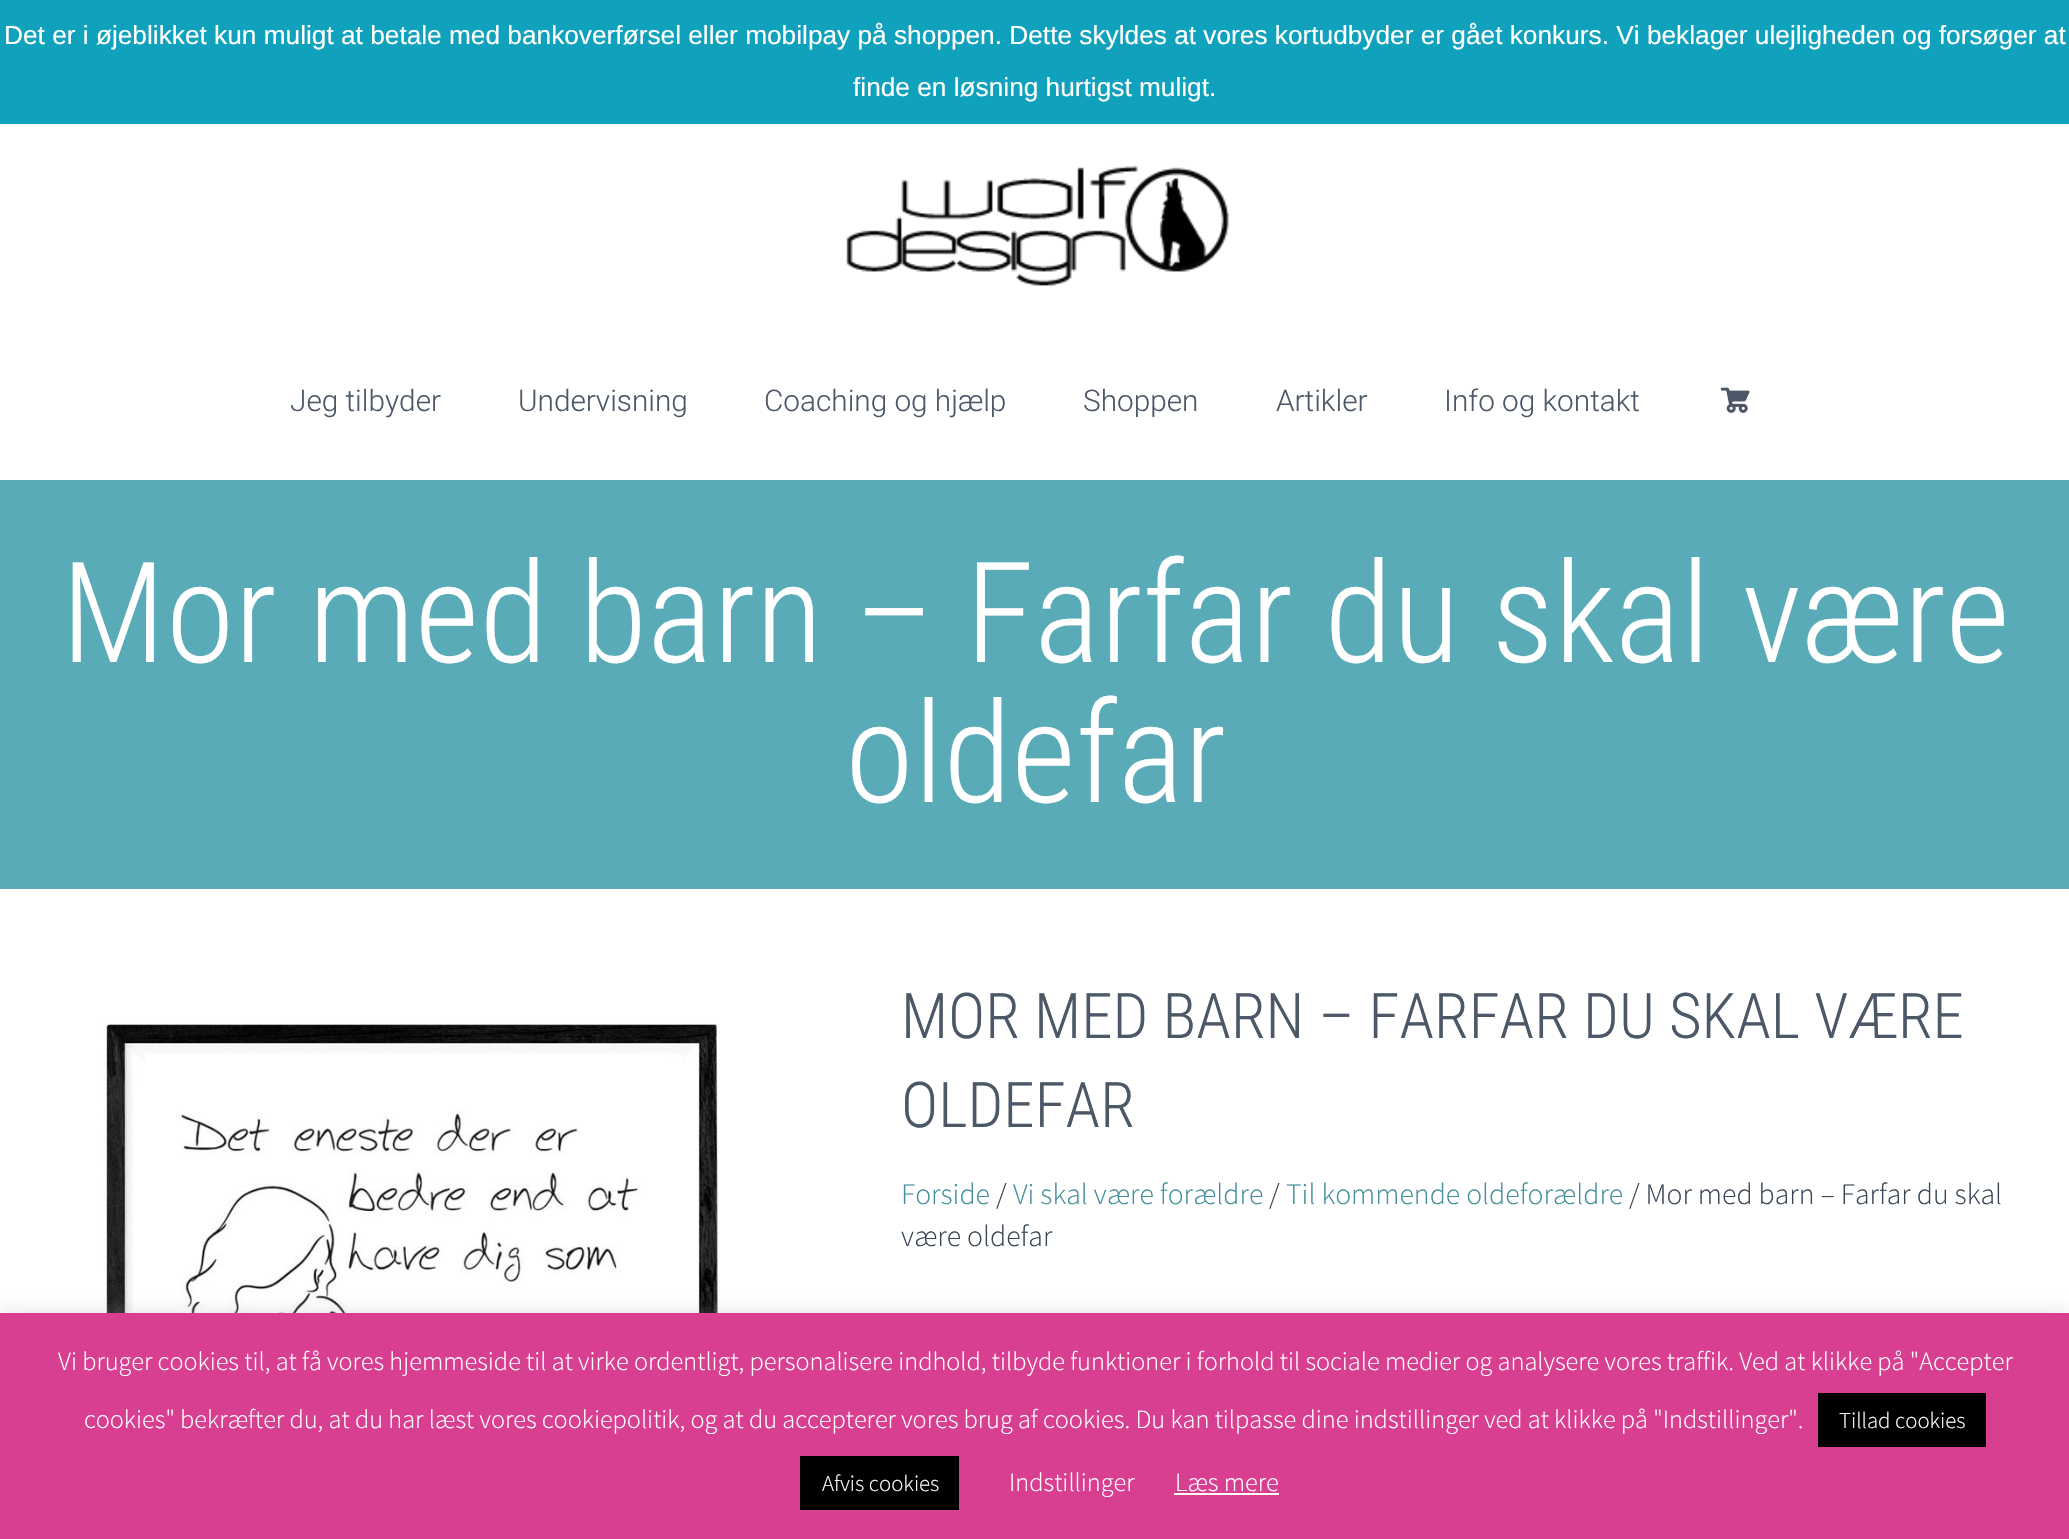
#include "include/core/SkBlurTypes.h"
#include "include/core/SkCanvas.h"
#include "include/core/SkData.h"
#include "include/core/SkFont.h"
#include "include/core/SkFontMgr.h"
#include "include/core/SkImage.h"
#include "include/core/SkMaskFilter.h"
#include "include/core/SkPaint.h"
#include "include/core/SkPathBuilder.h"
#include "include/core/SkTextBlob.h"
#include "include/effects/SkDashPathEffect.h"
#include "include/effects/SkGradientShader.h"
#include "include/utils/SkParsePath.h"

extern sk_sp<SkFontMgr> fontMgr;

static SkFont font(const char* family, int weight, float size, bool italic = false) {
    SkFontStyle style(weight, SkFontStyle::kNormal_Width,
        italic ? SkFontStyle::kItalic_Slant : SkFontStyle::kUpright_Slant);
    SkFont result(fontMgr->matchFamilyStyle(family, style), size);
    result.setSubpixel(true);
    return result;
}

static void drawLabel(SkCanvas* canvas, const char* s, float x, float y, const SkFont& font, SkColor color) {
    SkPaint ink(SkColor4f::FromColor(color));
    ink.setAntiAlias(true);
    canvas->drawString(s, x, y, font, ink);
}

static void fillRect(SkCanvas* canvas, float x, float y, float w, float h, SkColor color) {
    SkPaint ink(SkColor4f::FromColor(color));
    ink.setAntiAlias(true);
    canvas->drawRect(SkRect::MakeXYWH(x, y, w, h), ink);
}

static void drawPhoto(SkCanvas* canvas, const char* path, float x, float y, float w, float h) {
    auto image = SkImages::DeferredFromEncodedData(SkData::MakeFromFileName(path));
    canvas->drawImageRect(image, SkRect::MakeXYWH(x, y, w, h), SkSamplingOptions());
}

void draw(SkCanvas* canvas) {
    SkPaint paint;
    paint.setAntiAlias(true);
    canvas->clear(0xFFFFFFFF);
    fillRect(canvas, 0, 0, 2069, 124, 0xFF10A2BC);
    SkFont font1 = font("Liberation Sans", 400, 26.25f);
    drawLabel(canvas, "Det er i øjeblikket kun muligt at betale med bankoverførsel eller mobilpay på shoppen. Dette skyldes at vores kortudbyder er gået konkurs. Vi beklager ulejligheden og forsøger at", 4, 44, font1, 0xFFFFFFFF);
    drawLabel(canvas, "finde en løsning hurtigst muligt.", 853, 96, font1, 0xFFFFFFFF);
    drawPhoto(canvas, "assets/img1.png", 846, 165, 383, 121);
    SkFont font2 = font("Roboto", 300, 29.75f);
    drawLabel(canvas, "Jeg tilbyder", 290, 411, font2, 0xFF4C5867);
    drawLabel(canvas, "Undervisning", 518, 411, font2, 0xFF4C5867);
    drawLabel(canvas, "Coaching og hjælp", 764, 411, font2, 0xFF4C5867);
    drawLabel(canvas, "Shoppen", 1083, 411, font2, 0xFF4C5867);
    drawLabel(canvas, "Artikler", 1276, 411, font2, 0xFF4C5867);
    drawLabel(canvas, "Info og kontakt", 1444, 411, font2, 0xFF4C5867);
    drawPhoto(canvas, "assets/img2.png", 1720, 387, 30, 26);
    fillRect(canvas, 0, 480, 2069, 409, 0xFF58ABB7);
    SkFont font3 = font("Roboto Condensed", 300, 140);
    drawLabel(canvas, "Mor med barn – Farfar du skal være", 61, 662, font3, 0xFFFFFFFF);
    drawLabel(canvas, "oldefar", 845, 802, font3, 0xFFFFFFFF);
    drawPhoto(canvas, "assets/img3.png", 103, 1022, 616, 291);
    SkFont font4 = font("Roboto Condensed", 300, 63);
    drawLabel(canvas, "MOR MED BARN – FARFAR DU SKAL VÆRE", 901, 1038, font4, 0xFF4C5867);
    drawLabel(canvas, "OLDEFAR", 901, 1127, font4, 0xFF4C5867);
    SkFont font5 = font("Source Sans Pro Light", 300, 29.75f);
    drawLabel(canvas, "Forside", 901, 1204, font5, 0xFF418F9A);
    drawLabel(canvas, "/", 996, 1204, font5, 0xFF384554);
    drawLabel(canvas, "Vi skal være forældre", 1013, 1204, font5, 0xFF418F9A);
    drawLabel(canvas, "/", 1269, 1204, font5, 0xFF384554);
    drawLabel(canvas, "Til kommende oldeforældre", 1286, 1204, font5, 0xFF418F9A);
    drawLabel(canvas, "/ Mor med barn – Farfar du skal", 1629, 1204, font5, 0xFF384554);
    drawLabel(canvas, "være oldefar", 901, 1246, font5, 0xFF384554);
    paint.setColor(0x4DACABAB);
    paint.setMaskFilter(SkMaskFilter::MakeBlur(kNormal_SkBlurStyle, 9));
    canvas->drawRect(SkRect::MakeXYWH(0, 1311, 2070, 227), paint);
    paint.setMaskFilter(nullptr);
    fillRect(canvas, 0, 1313, 2069, 226, 0xFFD83F91);
    SkFont font6 = font("Source Sans Pro Light", 300, 26.25f);
    drawLabel(canvas, "Vi bruger cookies til, at få vores hjemmeside til at virke ordentligt, personalisere indhold, tilbyde funktioner i forhold til sociale medier og analysere vores traffik. Ved at klikke på \"Accepter", 58, 1370, font6, 0xFFFFFFFF);
    drawLabel(canvas, "cookies\" bekræfter du, at du har læst vores cookiepolitik, og at du accepterer vores brug af cookies. Du kan tilpasse dine indstillinger ved at klikke på \"Indstillinger\".", 84, 1428, font6, 0xFFFFFFFF);
    fillRect(canvas, 1818, 1393, 168, 54, 0xFF000000);
    SkFont font7 = font("Source Sans Pro Light", 300, 22.75f);
    drawLabel(canvas, "Tillad cookies", 1839, 1428, font7, 0xFFFFFFFF);
    fillRect(canvas, 800, 1456, 159, 54, 0xFF000000);
    drawLabel(canvas, "Afvis cookies", 822, 1491, font7, 0xFFFFFFFF);
    drawLabel(canvas, "Indstillinger", 1009, 1491, font6, 0xFFFFFFFF);
    drawLabel(canvas, "Læs mere", 1175, 1491, font6, 0xFFFFFFFF);
    fillRect(canvas, 1174, 1493, 105, 2, 0xFFFFFFFF);
}
